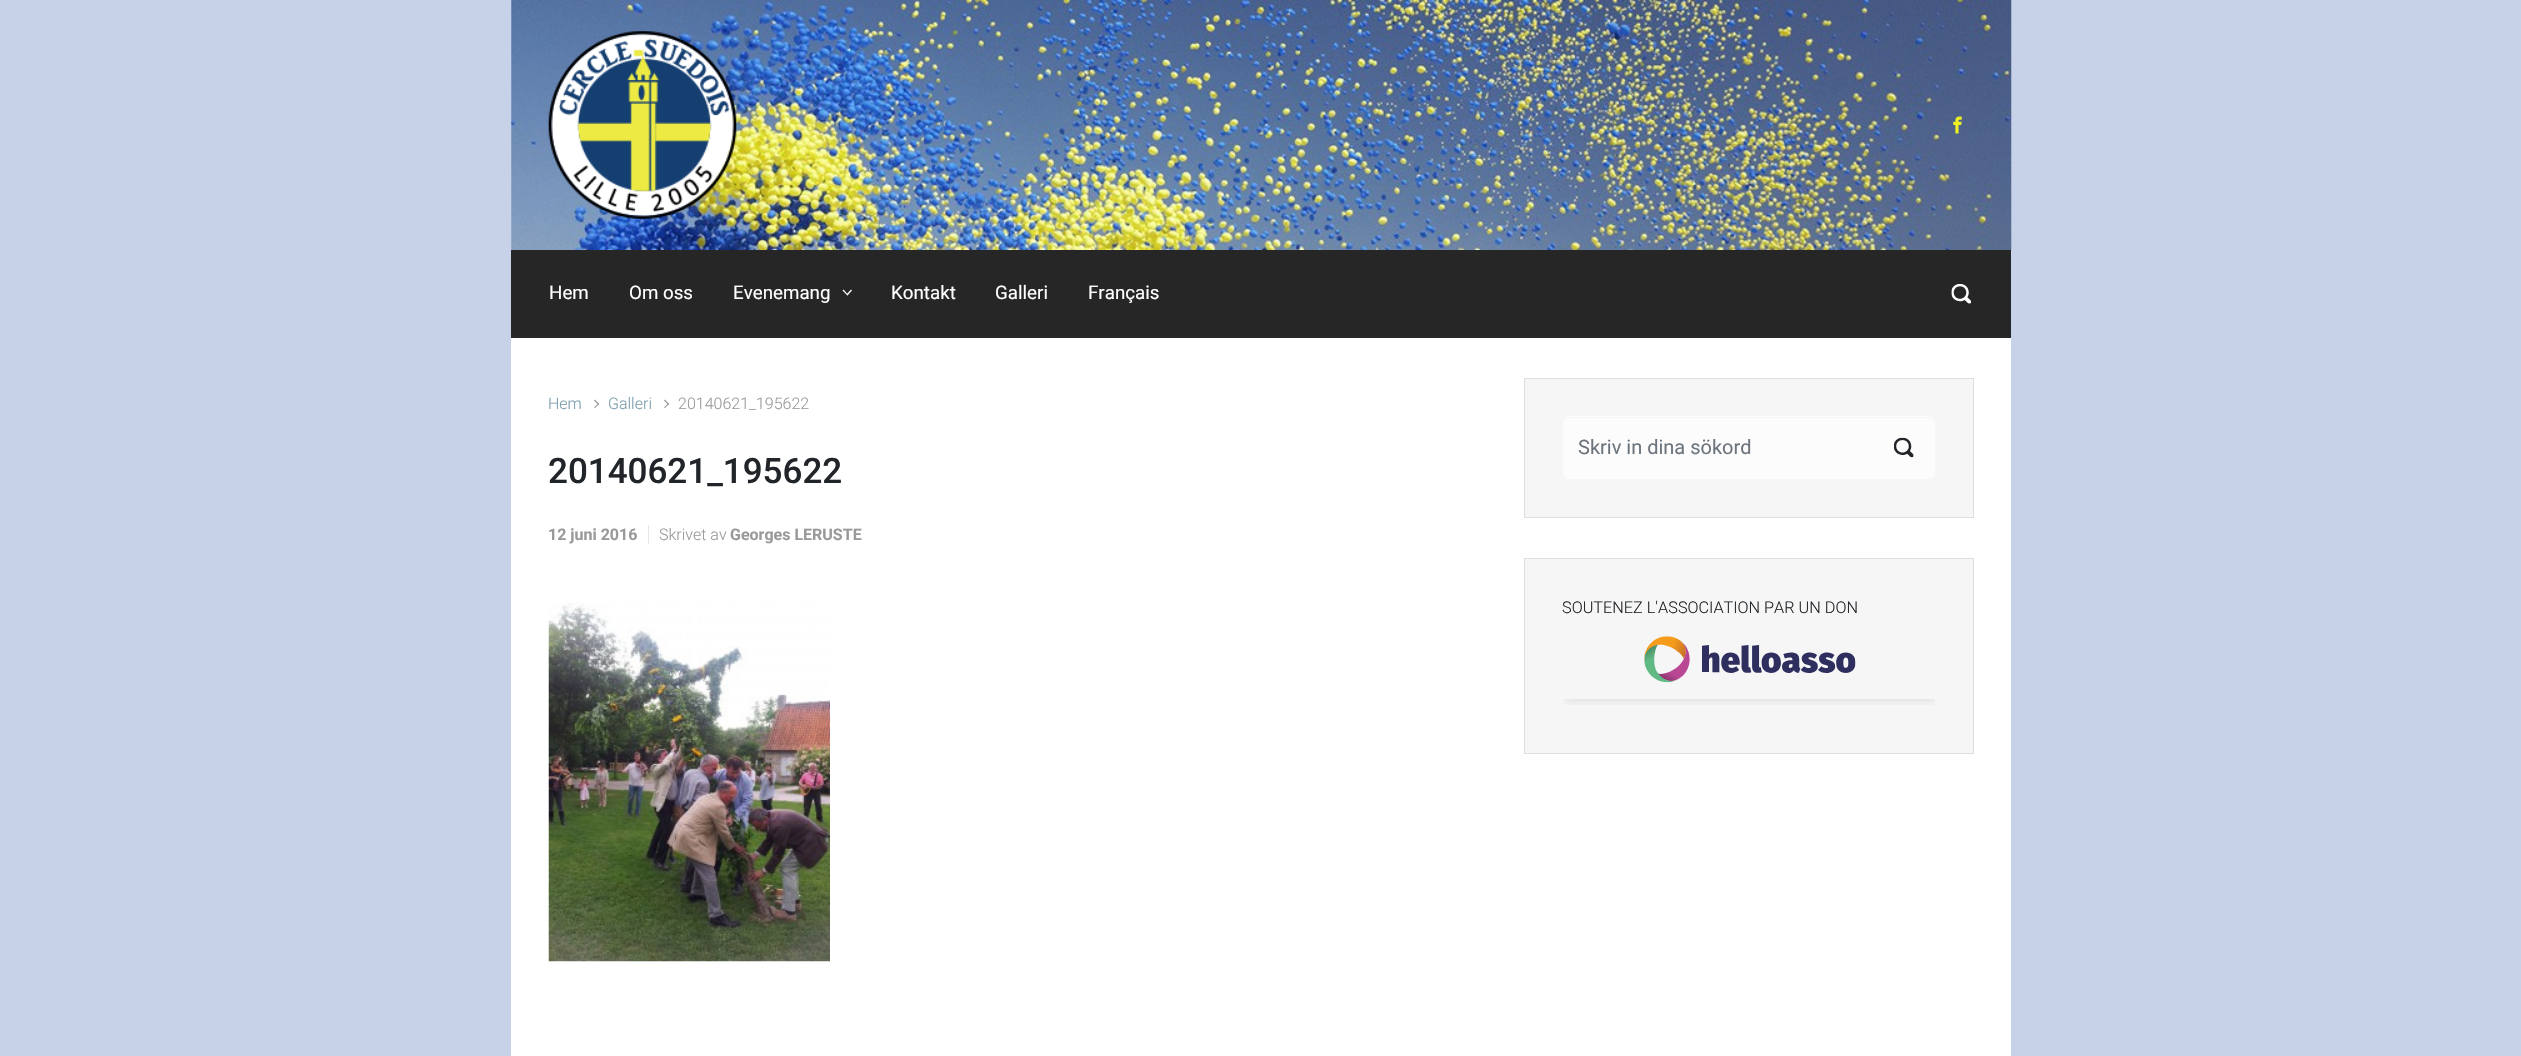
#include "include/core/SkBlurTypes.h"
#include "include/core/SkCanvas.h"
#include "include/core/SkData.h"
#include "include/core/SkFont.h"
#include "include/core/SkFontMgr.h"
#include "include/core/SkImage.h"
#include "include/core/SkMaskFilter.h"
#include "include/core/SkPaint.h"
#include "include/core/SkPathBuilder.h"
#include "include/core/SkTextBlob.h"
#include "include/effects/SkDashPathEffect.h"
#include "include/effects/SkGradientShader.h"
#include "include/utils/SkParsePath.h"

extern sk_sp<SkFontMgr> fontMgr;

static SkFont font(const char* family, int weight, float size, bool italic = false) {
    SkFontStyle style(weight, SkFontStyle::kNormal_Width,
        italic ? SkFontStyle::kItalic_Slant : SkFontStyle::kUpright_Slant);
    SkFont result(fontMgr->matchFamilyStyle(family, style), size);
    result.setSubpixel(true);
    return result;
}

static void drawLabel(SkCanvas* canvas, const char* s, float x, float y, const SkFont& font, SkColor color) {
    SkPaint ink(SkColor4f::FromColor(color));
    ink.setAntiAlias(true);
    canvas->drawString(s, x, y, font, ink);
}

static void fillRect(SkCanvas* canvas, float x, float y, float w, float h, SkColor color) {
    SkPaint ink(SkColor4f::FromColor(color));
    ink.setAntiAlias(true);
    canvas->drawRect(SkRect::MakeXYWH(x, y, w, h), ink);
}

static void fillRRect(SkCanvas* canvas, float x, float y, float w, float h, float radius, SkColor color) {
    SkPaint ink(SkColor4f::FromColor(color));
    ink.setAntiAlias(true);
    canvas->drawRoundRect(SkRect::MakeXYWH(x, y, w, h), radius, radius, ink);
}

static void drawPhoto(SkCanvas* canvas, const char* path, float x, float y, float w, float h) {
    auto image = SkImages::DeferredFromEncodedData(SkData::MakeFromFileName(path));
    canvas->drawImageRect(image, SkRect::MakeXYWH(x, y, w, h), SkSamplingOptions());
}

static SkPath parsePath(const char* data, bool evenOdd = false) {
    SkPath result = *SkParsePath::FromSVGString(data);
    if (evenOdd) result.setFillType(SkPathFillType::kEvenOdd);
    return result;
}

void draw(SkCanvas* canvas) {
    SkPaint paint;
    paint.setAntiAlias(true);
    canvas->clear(0xFFC7D1E8);
    drawPhoto(canvas, "assets/img1.png", 511, 0, 1501, 250);
    drawPhoto(canvas, "assets/img2.png", 548, 31, 189, 188);
    drawPhoto(canvas, "assets/img3.png", 1953, 116, 9, 18);
    fillRect(canvas, 511, 250, 1500, 88, 0xFF262626);
    SkFont font1 = font("Roboto", 400, 18.75f);
    drawLabel(canvas, "Hem", 549, 299, font1, 0xFFFFFFFF);
    drawLabel(canvas, "Om oss", 629, 299, font1, 0xFFFFFFFF);
    drawLabel(canvas, "Evenemang", 733, 299, font1, 0xFFFFFFFF);
    paint.setColor(0xFFFFFFFF);
    canvas->drawPath(parsePath("M851 289.5L852 290.5L847.5 295.5L846.5 294.5Z"), paint);
    canvas->drawPath(parsePath("M843.5 289.5L848 294.5L847.5 295.5L842.5 290.5Z"), paint);
    drawLabel(canvas, "Kontakt", 891, 299, font1, 0xFFFFFFFF);
    drawLabel(canvas, "Galleri", 995, 299, font1, 0xFFFFFFFF);
    drawLabel(canvas, "Français", 1088, 299, font1, 0xFFFFFFFF);
    drawPhoto(canvas, "assets/img4.png", 1951, 284, 20, 20);
    fillRect(canvas, 511, 338, 1500, 718, 0xFFFFFFFF);
    SkFont font2 = font("Roboto", 300, 16);
    drawLabel(canvas, "Hem", 548, 409, font2, 0xFF7A9CAD);
    paint.setColor(0xFF999999);
    canvas->drawPath(parsePath("M594 400.5L595 399.5L599 404L598.5 405Z"), paint);
    canvas->drawPath(parsePath("M594 407.5L598.5 403L599 404L595 408Z"), paint);
    drawLabel(canvas, "Galleri", 608, 409, font2, 0xFF7A9CAD);
    canvas->drawPath(parsePath("M664 400.5L665 399.5L669 404L668.5 405Z"), paint);
    canvas->drawPath(parsePath("M664 407.5L668.5 403L669 404L665 408Z"), paint);
    drawLabel(canvas, "20140621_195622", 678, 409, font2, 0xFF999999);
    SkFont font3 = font("Roboto", 500, 35);
    drawLabel(canvas, "20140621_195622", 548, 483, font3, 0xFF212529);
    SkFont font4 = font("Roboto", 700, 16);
    drawLabel(canvas, "12 juni 2016", 548, 540, font4, 0xFF999999);
    fillRect(canvas, 648, 525, 1, 19, 0xFFE6E6E6);
    drawLabel(canvas, "Skrivet av", 659, 540, font2, 0xFF999999);
    drawLabel(canvas, "Georges LERUSTE", 730, 540, font4, 0xFF999999);
    drawPhoto(canvas, "assets/img5.png", 548, 602, 282, 360);
    paint.setColor(0xFFF6F6F6);
    canvas->drawRect(SkRect::MakeXYWH(1524.5f, 378.5f, 449, 139), paint);
    paint.setStroke(true);
    paint.setStrokeWidth(1);
    paint.setColor(0xFFE0DDDD);
    canvas->drawRect(SkRect::MakeXYWH(1524.5f, 378.5f, 449, 139), paint);
    fillRRect(canvas, 1564, 418, 370, 60, 4, 0xFFFCFCFC);
    paint.setColor(0xFFFCFCFC);
    canvas->drawRoundRect(SkRect::MakeXYWH(1563.5f, 416.5f, 371, 62), 4.5f, 4.5f, paint);
    SkFont font5 = font("Roboto", 400, 20);
    drawLabel(canvas, "Skriv in dina sökord", 1578, 454, font5, 0xFF6C757D);
    drawPhoto(canvas, "assets/img6.png", 1894, 437, 20, 21);
    paint.setStroke(false);
    paint.setColor(0xFFF6F6F6);
    canvas->drawRect(SkRect::MakeXYWH(1524.5f, 558.5f, 449, 195), paint);
    paint.setStroke(true);
    paint.setColor(0xFFE0DDDD);
    canvas->drawRect(SkRect::MakeXYWH(1524.5f, 558.5f, 449, 195), paint);
    SkFont font6 = font("Roboto", 300, 16.25f);
    drawLabel(canvas, "SOUTENEZ L'ASSOCIATION PAR UN DON", 1562, 613, font6, 0xFF212529);
    drawPhoto(canvas, "assets/img7.png", 1563, 636, 372, 69);
}
